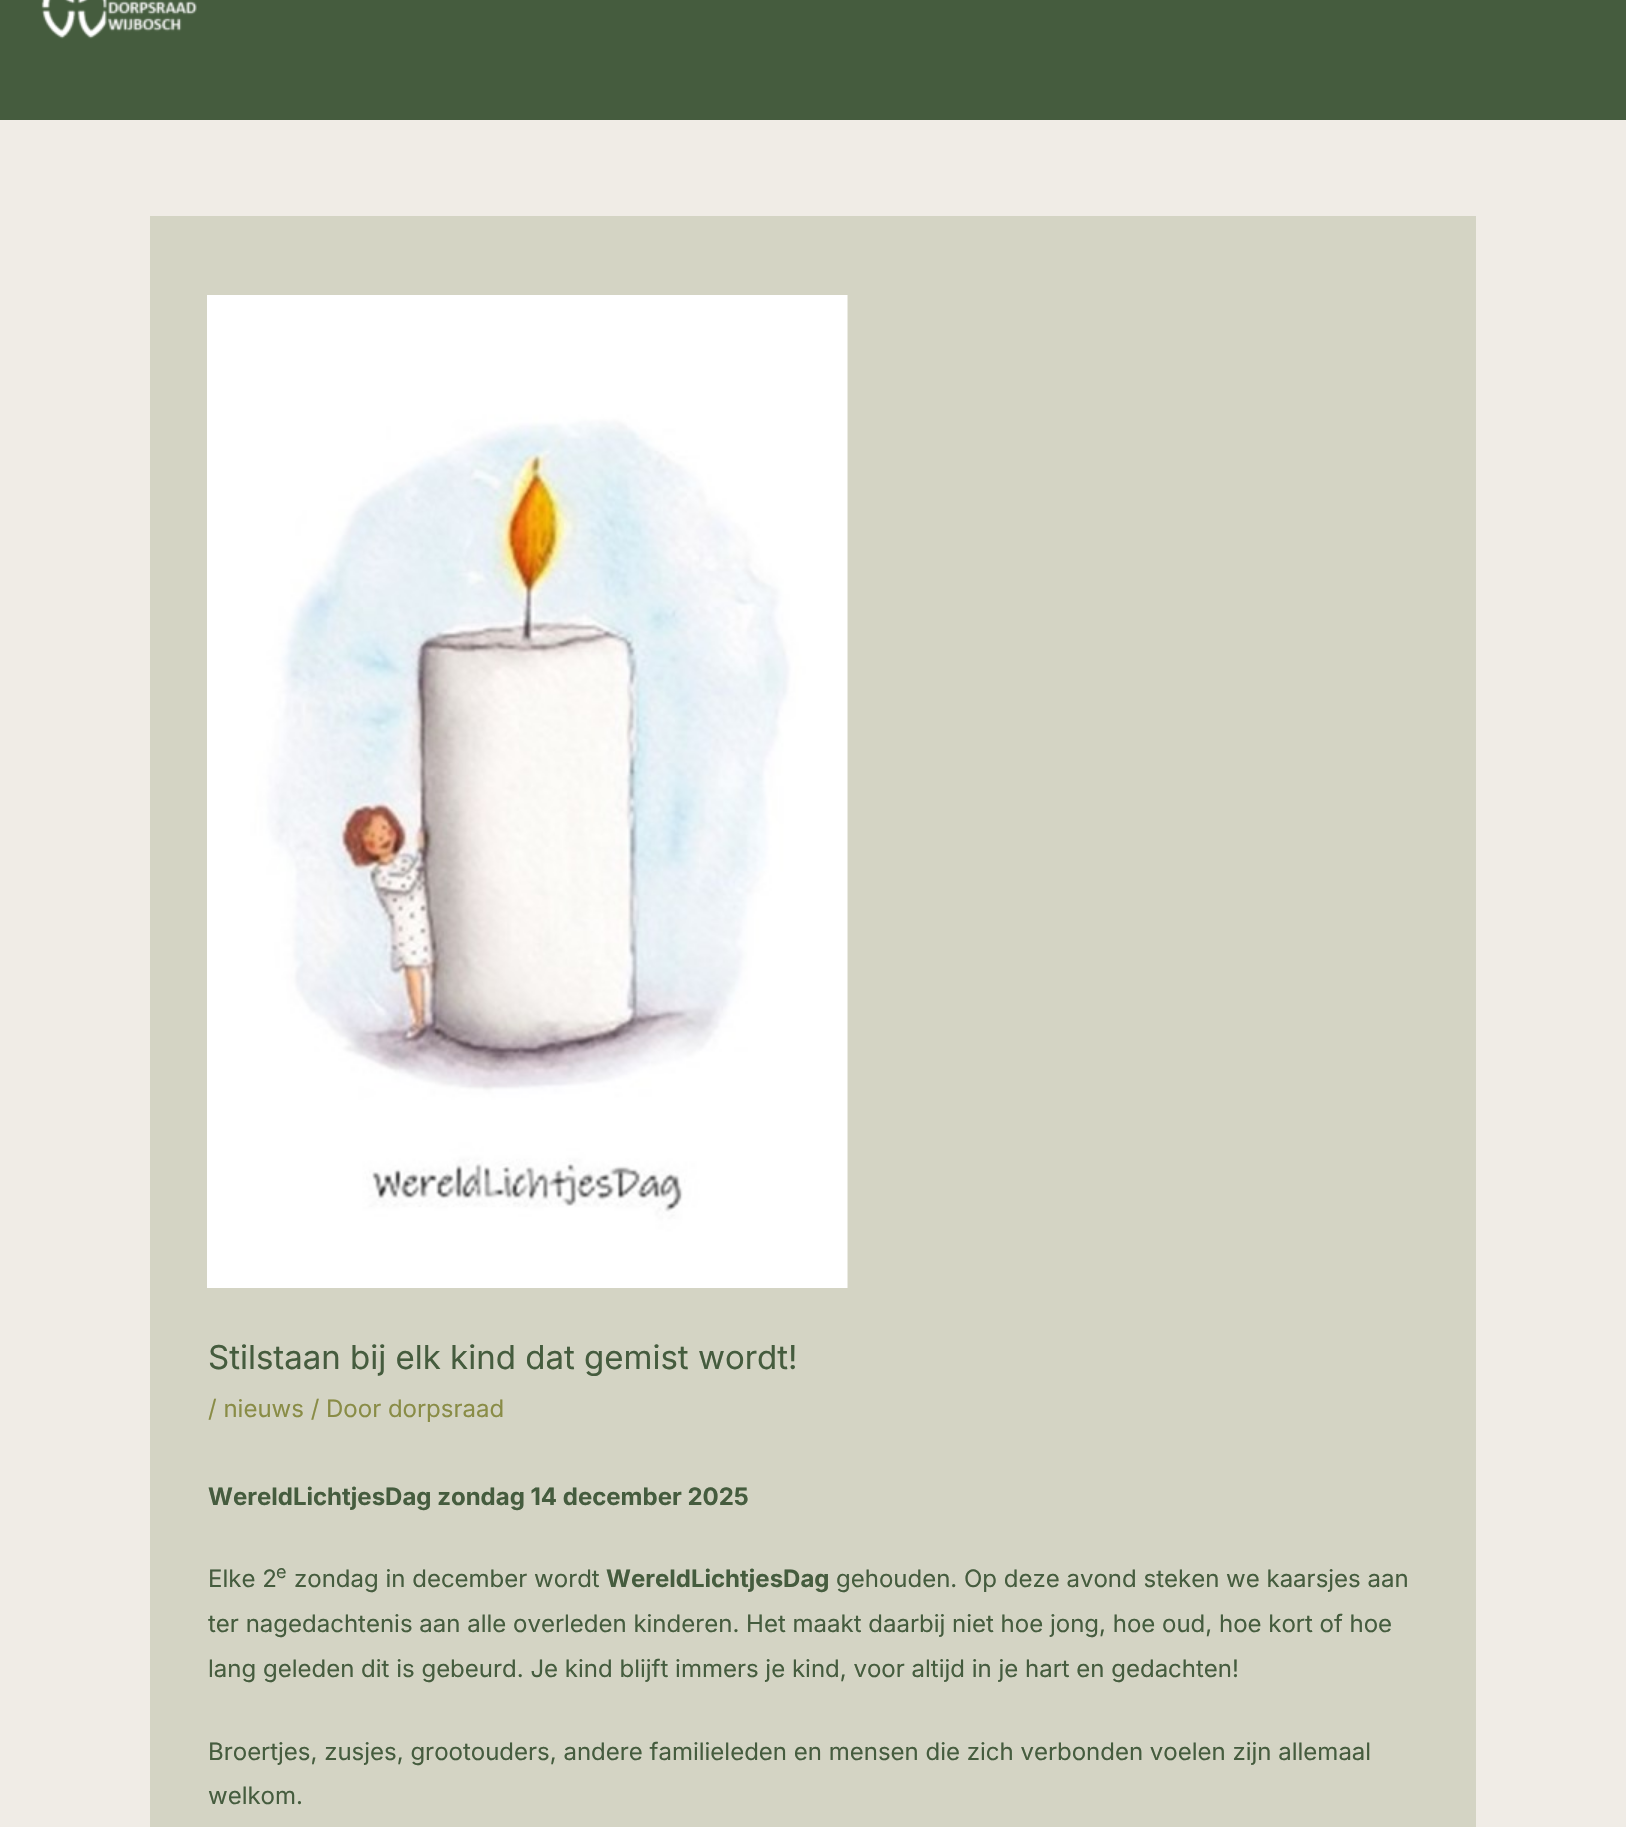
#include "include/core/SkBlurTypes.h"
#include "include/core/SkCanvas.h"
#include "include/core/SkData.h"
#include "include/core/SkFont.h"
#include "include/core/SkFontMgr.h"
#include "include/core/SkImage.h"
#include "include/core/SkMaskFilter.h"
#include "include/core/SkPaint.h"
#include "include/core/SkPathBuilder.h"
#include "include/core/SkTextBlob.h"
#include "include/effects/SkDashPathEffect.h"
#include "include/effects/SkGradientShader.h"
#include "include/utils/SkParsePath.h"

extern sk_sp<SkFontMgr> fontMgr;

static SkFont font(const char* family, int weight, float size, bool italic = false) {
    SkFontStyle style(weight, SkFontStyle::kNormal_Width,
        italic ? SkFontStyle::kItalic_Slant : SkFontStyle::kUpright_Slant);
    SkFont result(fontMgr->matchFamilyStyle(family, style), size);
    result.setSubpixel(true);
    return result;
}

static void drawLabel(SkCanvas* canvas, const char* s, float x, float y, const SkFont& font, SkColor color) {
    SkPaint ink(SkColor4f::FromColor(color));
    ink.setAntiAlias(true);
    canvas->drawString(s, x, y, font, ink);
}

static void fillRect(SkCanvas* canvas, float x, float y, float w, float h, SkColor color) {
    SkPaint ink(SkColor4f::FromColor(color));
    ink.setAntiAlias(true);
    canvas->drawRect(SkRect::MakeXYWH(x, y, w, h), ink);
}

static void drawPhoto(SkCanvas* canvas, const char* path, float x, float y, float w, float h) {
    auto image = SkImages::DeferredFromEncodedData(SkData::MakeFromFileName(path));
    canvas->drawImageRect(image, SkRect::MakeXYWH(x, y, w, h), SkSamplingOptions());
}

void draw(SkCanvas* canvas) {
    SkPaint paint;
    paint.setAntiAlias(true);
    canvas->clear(0xFFF0ECE6);
    fillRect(canvas, 0, 0, 1626, 120, 0xFF455C3E);
    drawPhoto(canvas, "assets/img1.png", 41, 0, 156, 39);
    fillRect(canvas, 150, 216, 1326, 1611, 0xFFD4D4C4);
    drawPhoto(canvas, "assets/img2.png", 207, 295, 641, 993);
    SkFont font1 = font("Inter", 400, 33);
    drawLabel(canvas, "Stilstaan bij elk kind dat gemist wordt!", 208, 1369, font1, 0xFF455C3E);
    SkFont font2 = font("Inter", 400, 24);
    drawLabel(canvas, "/ nieuws / Door dorpsraad", 208, 1417, font2, 0xFF898C46);
    SkFont font3 = font("Inter", 700, 24);
    drawLabel(canvas, "WereldLichtjesDag zondag 14 december 2025", 208, 1505, font3, 0xFF455C3E);
    drawLabel(canvas, "Elke 2", 208, 1587, font2, 0xFF455C3E);
    SkFont font4 = font("Inter", 400, 18);
    drawLabel(canvas, "e", 276, 1578, font4, 0xFF455C3E);
    drawLabel(canvas, "zondag in december wordt", 294, 1587, font2, 0xFF455C3E);
    drawLabel(canvas, "WereldLichtjesDag", 606, 1587, font3, 0xFF455C3E);
    drawLabel(canvas, "gehouden. Op deze avond steken we kaarsjes aan", 836, 1587, font2, 0xFF455C3E);
    drawLabel(canvas, "ter nagedachtenis aan alle overleden kinderen. Het maakt daarbij niet hoe jong, hoe oud, hoe kort of hoe", 208, 1632, font2, 0xFF455C3E);
    drawLabel(canvas, "lang geleden dit is gebeurd. Je kind blijft immers je kind, voor altijd in je hart en gedachten!", 208, 1677, font2, 0xFF455C3E);
    drawLabel(canvas, "Broertjes, zusjes, grootouders, andere familieleden en mensen die zich verbonden voelen zijn allemaal", 208, 1760, font2, 0xFF455C3E);
    drawLabel(canvas, "welkom.", 208, 1804, font2, 0xFF455C3E);
}
